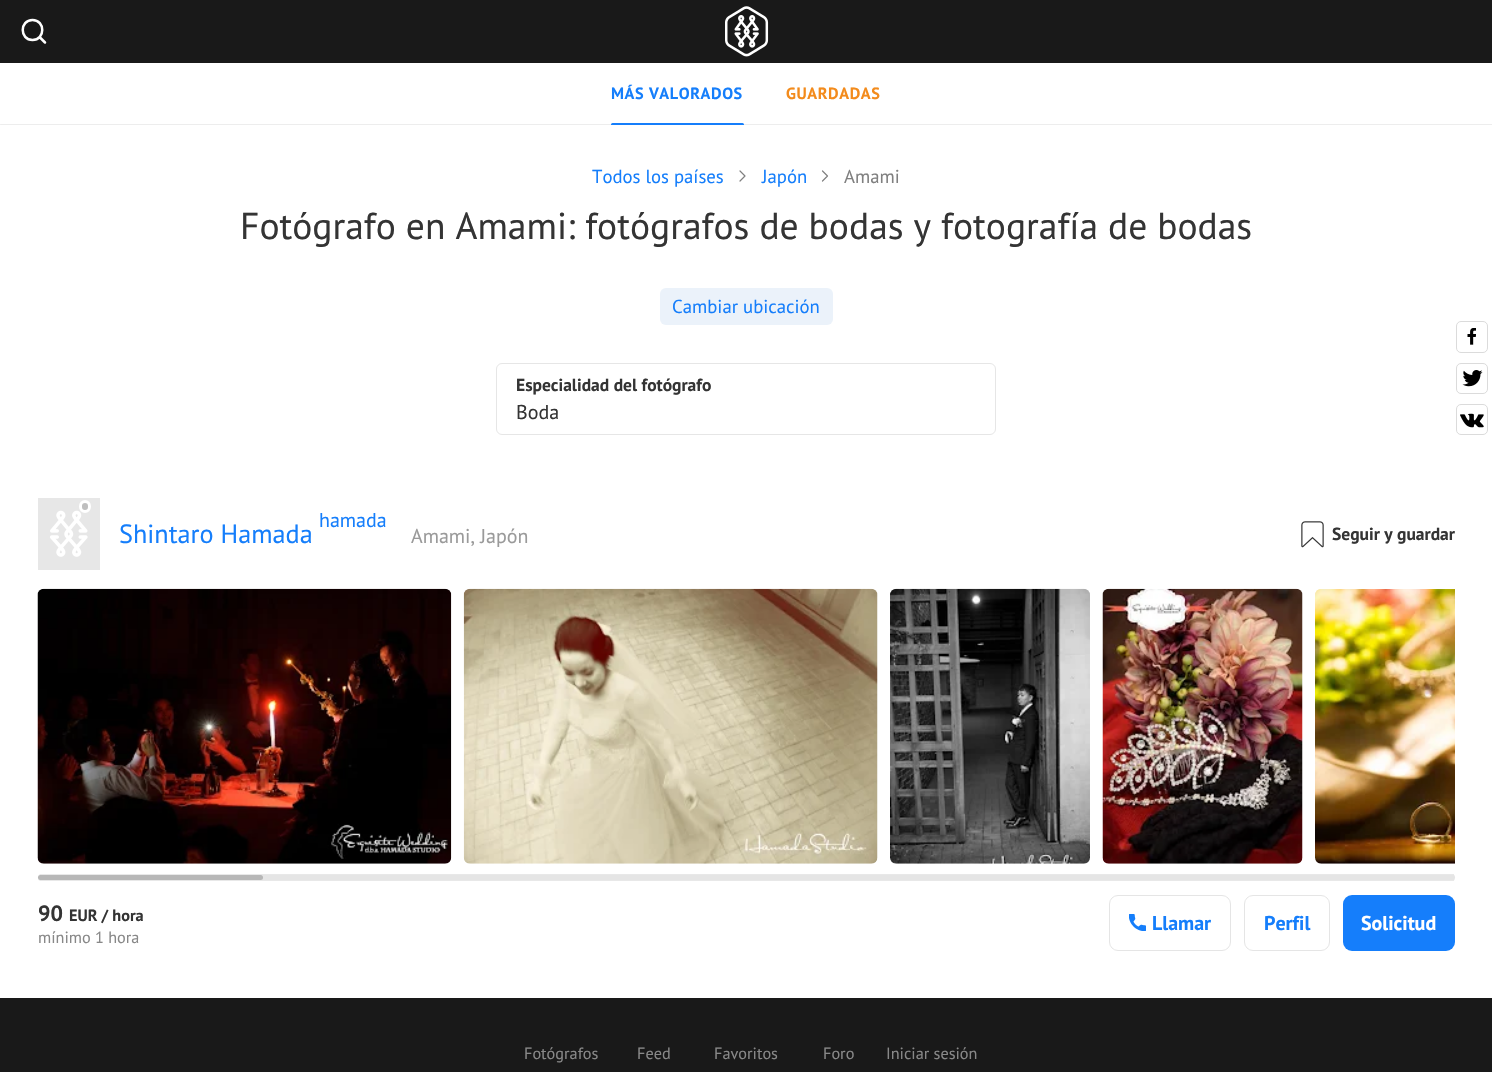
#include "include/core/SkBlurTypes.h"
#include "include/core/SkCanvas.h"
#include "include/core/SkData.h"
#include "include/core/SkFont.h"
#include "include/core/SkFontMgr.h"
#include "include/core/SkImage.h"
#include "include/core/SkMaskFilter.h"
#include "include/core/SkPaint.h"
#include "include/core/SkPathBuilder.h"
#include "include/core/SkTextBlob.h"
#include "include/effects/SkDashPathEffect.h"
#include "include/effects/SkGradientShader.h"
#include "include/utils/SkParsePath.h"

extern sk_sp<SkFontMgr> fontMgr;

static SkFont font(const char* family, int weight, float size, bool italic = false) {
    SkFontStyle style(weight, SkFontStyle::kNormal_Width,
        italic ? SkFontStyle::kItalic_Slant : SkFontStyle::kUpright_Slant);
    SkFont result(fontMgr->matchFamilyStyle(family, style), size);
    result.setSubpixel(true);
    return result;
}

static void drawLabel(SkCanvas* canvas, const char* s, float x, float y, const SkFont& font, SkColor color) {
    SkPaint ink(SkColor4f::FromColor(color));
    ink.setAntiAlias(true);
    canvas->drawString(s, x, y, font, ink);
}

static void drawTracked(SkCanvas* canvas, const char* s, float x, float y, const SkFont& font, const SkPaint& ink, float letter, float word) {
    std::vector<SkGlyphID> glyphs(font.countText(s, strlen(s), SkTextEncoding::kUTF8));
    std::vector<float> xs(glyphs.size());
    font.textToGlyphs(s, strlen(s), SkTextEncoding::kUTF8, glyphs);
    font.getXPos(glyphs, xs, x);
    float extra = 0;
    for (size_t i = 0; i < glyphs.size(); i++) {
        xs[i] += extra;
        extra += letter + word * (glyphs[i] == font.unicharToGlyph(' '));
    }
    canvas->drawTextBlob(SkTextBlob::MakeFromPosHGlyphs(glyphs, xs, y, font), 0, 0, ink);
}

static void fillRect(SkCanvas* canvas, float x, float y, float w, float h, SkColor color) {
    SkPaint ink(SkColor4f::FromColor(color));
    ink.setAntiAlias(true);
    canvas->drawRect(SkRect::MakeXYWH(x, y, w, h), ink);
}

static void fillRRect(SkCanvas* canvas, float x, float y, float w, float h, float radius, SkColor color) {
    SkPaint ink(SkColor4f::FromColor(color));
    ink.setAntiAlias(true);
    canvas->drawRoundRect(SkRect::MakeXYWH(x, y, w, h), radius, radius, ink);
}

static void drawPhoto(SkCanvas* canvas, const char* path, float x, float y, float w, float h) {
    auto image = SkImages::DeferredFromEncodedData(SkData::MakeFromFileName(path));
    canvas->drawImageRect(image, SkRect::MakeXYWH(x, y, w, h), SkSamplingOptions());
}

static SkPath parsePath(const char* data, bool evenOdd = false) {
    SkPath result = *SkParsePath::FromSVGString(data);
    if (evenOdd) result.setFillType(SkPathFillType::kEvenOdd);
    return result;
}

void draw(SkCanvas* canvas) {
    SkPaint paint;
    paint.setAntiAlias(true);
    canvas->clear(0xFFFFFFFF);
    fillRect(canvas, 0, 0, 1492, 63, 0xFF191919);
    paint.setStroke(true);
    paint.setStrokeWidth(2.5f);
    paint.setStrokeCap(SkPaint::kRound_Cap);
    paint.setStrokeJoin(SkPaint::kRound_Join);
    paint.setColor(0xFFFFFFFF);
    canvas->drawPath(parsePath("M32.5 40C45.5 40 45.5 20 32.5 20C19.5 20 19.5 40 32.5 40ZM45 42.5L39.5 37"), paint);
    drawPhoto(canvas, "assets/img1.png", 725, 6, 44, 51);
    SkFont font1 = font("PT Sans", 700, 16.25f);
    paint.setStroke(false);
    paint.setColor(0xFF157EFB);
    drawTracked(canvas, "MÁS VALORADOS", 611, 99, font1, paint, 0.6f, 0);
    fillRRect(canvas, 0, 124, 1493, 1, 0.5f, 0xFFEDEDED);
    canvas->save();
    canvas->clipRect(SkRect::MakeXYWH(0, 63, 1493, 62));
    fillRRect(canvas, 611, 123, 133, 3, 1.5f, 0xFF157EFB);
    canvas->restore();
    paint.setColor(0xFFF38B1C);
    drawTracked(canvas, "GUARDADAS", 786, 99, font1, paint, 0.6f, 0);
    SkFont font2 = font("PT Sans", 400, 18.75f);
    drawLabel(canvas, "Todos los países", 592, 183, font2, 0xFF157EFB);
    paint.setStroke(true);
    paint.setStrokeWidth(1.2f);
    paint.setColor(0xFF808080);
    canvas->drawPath(parsePath("M740 171L745 176L740 181"), paint);
    drawLabel(canvas, "Japón", 762, 183, font2, 0xFF157EFB);
    canvas->drawPath(parsePath("M822.5 171L827.5 176L822.5 181"), paint);
    drawLabel(canvas, "Amami", 844, 183, font2, 0xFF808080);
    SkFont font3 = font("PT Sans", 400, 37.5f);
    drawLabel(canvas, "Fotógrafo en Amami: fotógrafos de bodas y fotografía de bodas", 240, 239, font3, 0xFF343434);
    fillRRect(canvas, 660, 288, 173, 37, 6, 0xFFEBF2FA);
    drawLabel(canvas, "Cambiar ubicación", 672, 313, font2, 0xFF157EFB);
    paint.setStrokeWidth(1);
    paint.setStrokeCap(SkPaint::kButt_Cap);
    paint.setStrokeJoin(SkPaint::kMiter_Join);
    paint.setColor(0xFFE6E6E6);
    canvas->drawRoundRect(SkRect::MakeXYWH(496.5f, 363.5f, 499, 71), 5.5f, 5.5f, paint);
    SkFont font4 = font("PT Sans", 700, 17.5f);
    drawLabel(canvas, "Especialidad del fotógrafo", 516, 391, font4, 0xFF343434);
    SkFont font5 = font("PT Sans", 400, 20);
    drawLabel(canvas, "Boda", 516, 419, font5, 0xFF343434);
    drawPhoto(canvas, "assets/img2.png", 38, 498, 62, 72);
    paint.setStroke(false);
    paint.setColor(0xFFBEBEBE);
    canvas->drawRoundRect(SkRect::MakeXYWH(80.5f, 501.5f, 9, 10), 4.5f, 4.5f, paint);
    paint.setStroke(true);
    paint.setStrokeWidth(3);
    paint.setColor(0xFFFFFFFF);
    canvas->drawRoundRect(SkRect::MakeXYWH(80.5f, 501.5f, 9, 10), 4.5f, 4.5f, paint);
    drawLabel(canvas, "hamada", 319, 527, font5, 0xFF157EFB);
    SkFont font6 = font("PT Sans", 400, 26.25f);
    drawLabel(canvas, "Shintaro Hamada", 119, 543, font6, 0xFF157EFB);
    drawLabel(canvas, "Amami, Japón", 411, 543, font5, 0xFF9A9A9A);
    drawPhoto(canvas, "assets/img3.png", 1301, 521, 23, 27);
    drawLabel(canvas, "Seguir y guardar", 1332, 540, font4, 0xFF343434);
    drawPhoto(canvas, "assets/img4.png", 37, 588, 415, 276);
    drawPhoto(canvas, "assets/img5.png", 463, 588, 415, 276);
    drawPhoto(canvas, "assets/img6.png", 890, 588, 200, 276);
    drawPhoto(canvas, "assets/img7.png", 1102, 588, 201, 276);
    drawPhoto(canvas, "assets/img8.png", 1315, 589, 140, 275);
    fillRRect(canvas, 38, 874, 1417, 7, 3.5f, 0xFFE5E5E5);
    fillRect(canvas, 40, 874, 1414, 1, 0xFFE8E8E8);
    fillRect(canvas, 40, 880, 1414, 1, 0xFFE8E8E8);
    fillRRect(canvas, 38, 875, 225, 5, 2.5f, 0x33000000);
    SkFont font7 = font("PT Sans", 700, 22);
    drawLabel(canvas, "90", 38, 921, font7, 0xFF343434);
    drawLabel(canvas, "EUR / hora", 69, 921, font1, 0xFF343434);
    SkFont font8 = font("PT Sans", 400, 16.25f);
    drawLabel(canvas, "mínimo 1 hora", 38, 943, font8, 0xFF888888);
    paint.setStrokeWidth(1);
    paint.setColor(0xFFE5E5E5);
    canvas->drawRoundRect(SkRect::MakeXYWH(1109.5f, 895.5f, 121, 55), 8.5f, 8.5f, paint);
    drawPhoto(canvas, "assets/img9.png", 1129, 914, 17, 17);
    SkFont font9 = font("PT Sans", 700, 20);
    drawLabel(canvas, "Llamar", 1152, 930, font9, 0xFF157EFB);
    canvas->drawRoundRect(SkRect::MakeXYWH(1244.5f, 895.5f, 85, 55), 8.5f, 8.5f, paint);
    drawLabel(canvas, "Perfil", 1264, 930, font9, 0xFF157EFB);
    fillRRect(canvas, 1343, 895, 112, 56, 9, 0xFF157EFB);
    drawLabel(canvas, "Solicitud", 1361, 930, font9, 0xFFFFFFFF);
    paint.setColor(0xFFDBDBDB);
    canvas->drawRoundRect(SkRect::MakeXYWH(1456.5f, 321.5f, 31, 31), 4.5f, 4.5f, paint);
    drawPhoto(canvas, "assets/img10.png", 1467, 328, 9, 17);
    canvas->drawRoundRect(SkRect::MakeXYWH(1456.5f, 363.5f, 31, 30), 4.5f, 4.5f, paint);
    drawPhoto(canvas, "assets/img11.png", 1462, 370, 21, 17);
    canvas->drawRoundRect(SkRect::MakeXYWH(1456.5f, 404.5f, 31, 30), 4.5f, 4.5f, paint);
    drawPhoto(canvas, "assets/img12.png", 1460, 413, 24, 15);
    fillRect(canvas, 0, 998, 1492, 74, 0xFF191919);
    drawLabel(canvas, "Fotógrafos", 524, 1059, font8, 0xFF888888);
    drawLabel(canvas, "Feed", 637, 1059, font8, 0xFF888888);
    drawLabel(canvas, "Favoritos", 714, 1059, font8, 0xFF888888);
    drawLabel(canvas, "Foro", 823, 1059, font8, 0xFF888888);
    drawLabel(canvas, "Iniciar sesión", 886, 1059, font8, 0xFF888888);
}
